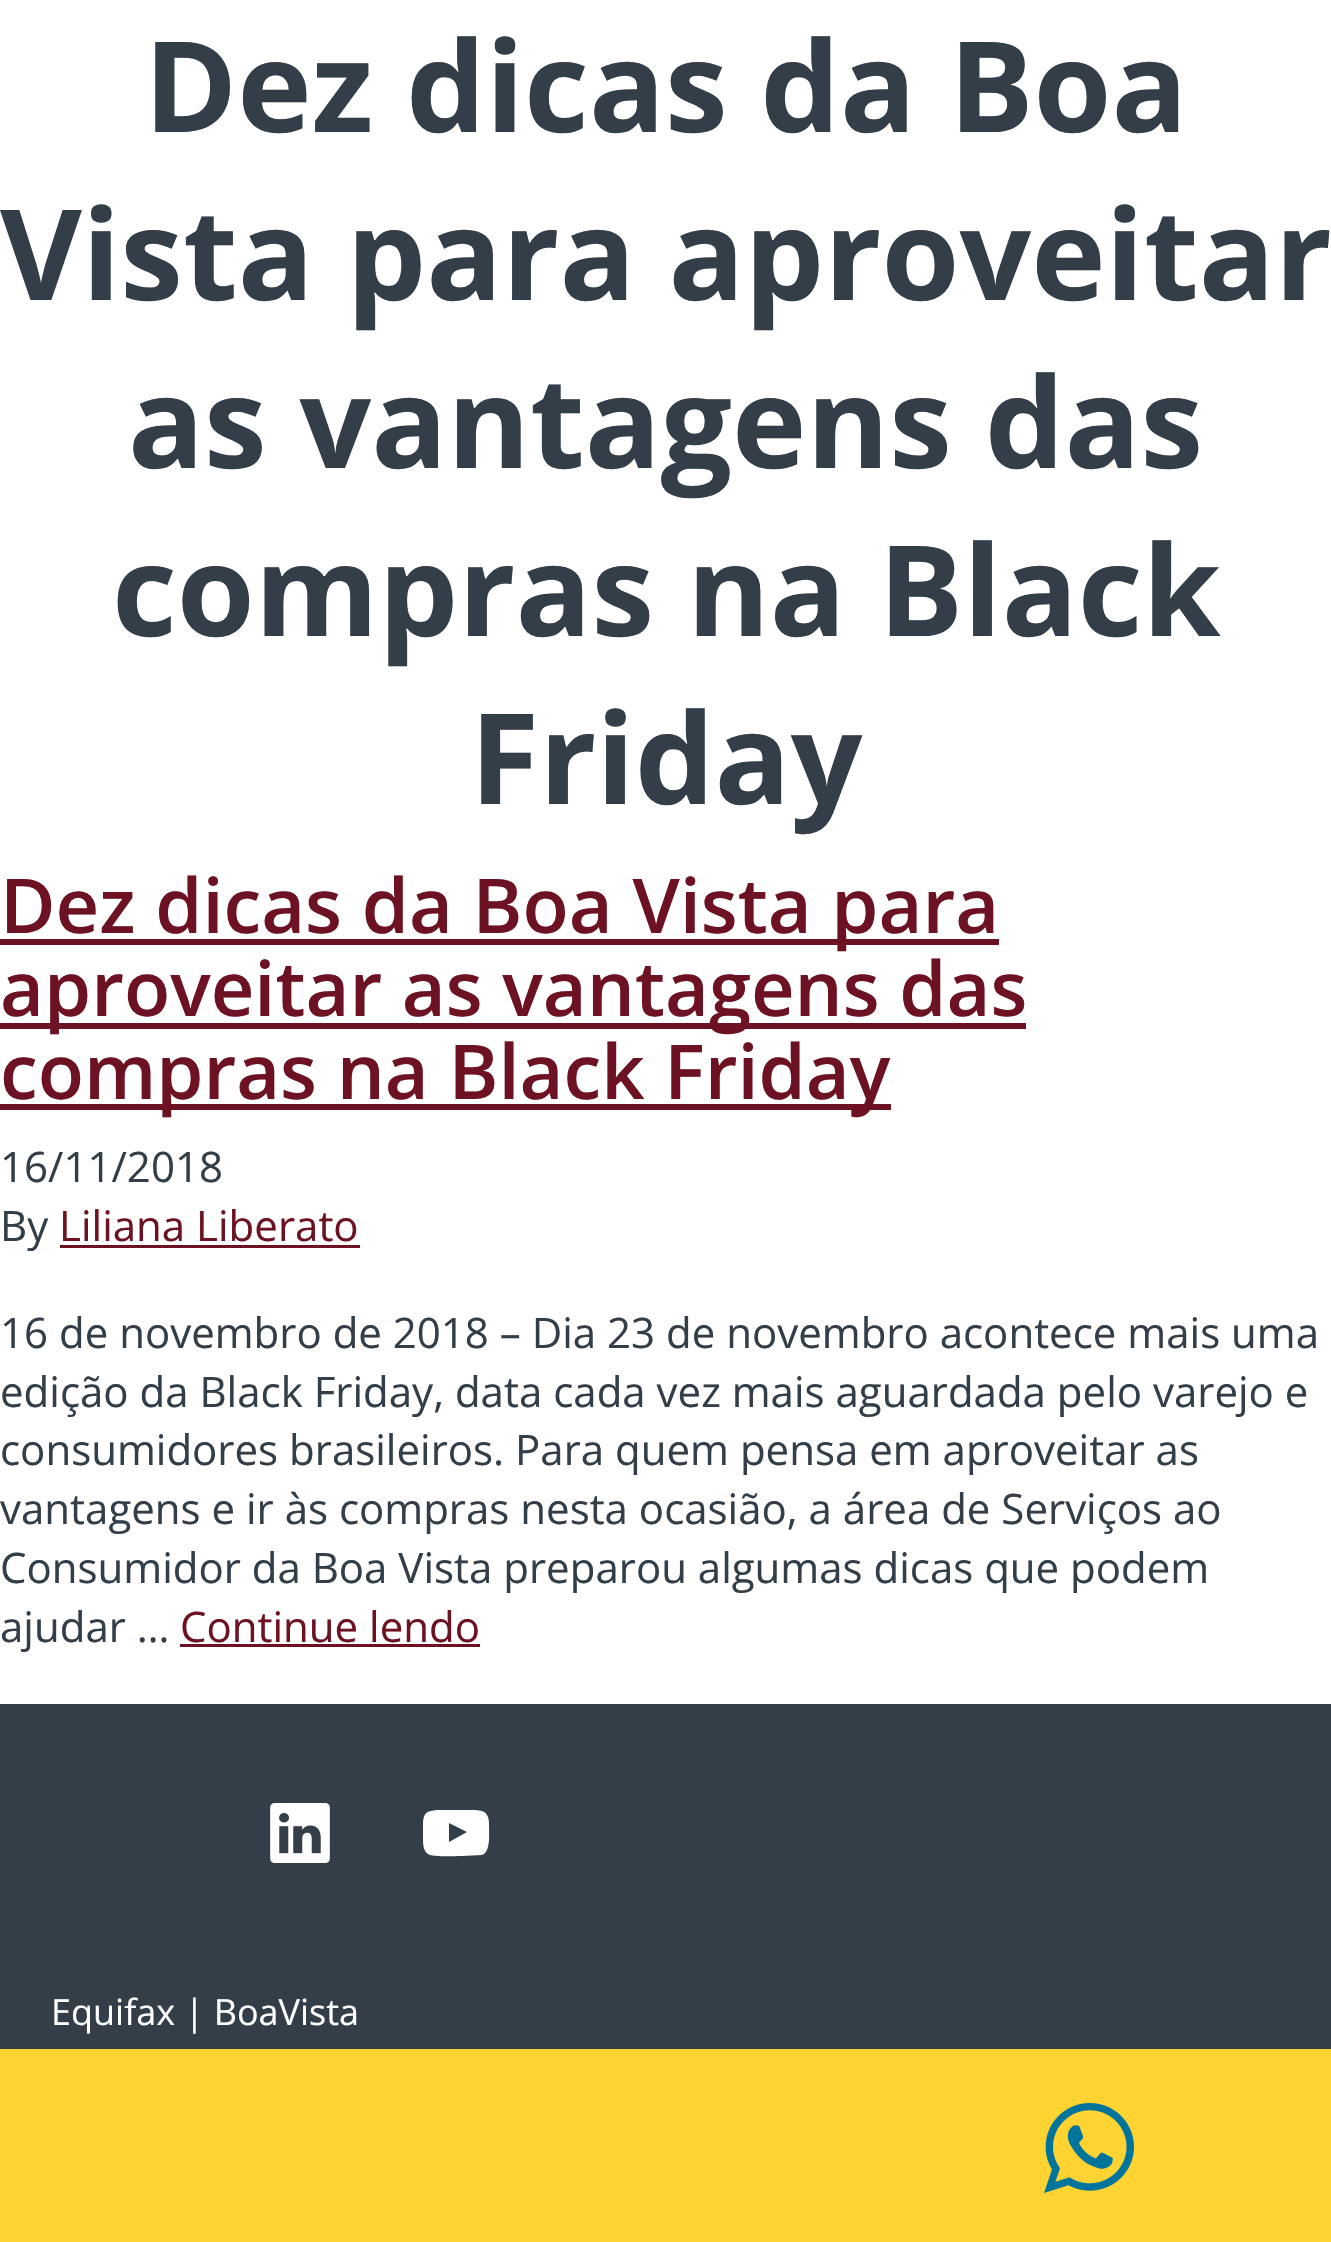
#include "include/core/SkBlurTypes.h"
#include "include/core/SkCanvas.h"
#include "include/core/SkData.h"
#include "include/core/SkFont.h"
#include "include/core/SkFontMgr.h"
#include "include/core/SkImage.h"
#include "include/core/SkMaskFilter.h"
#include "include/core/SkPaint.h"
#include "include/core/SkPathBuilder.h"
#include "include/core/SkTextBlob.h"
#include "include/effects/SkDashPathEffect.h"
#include "include/effects/SkGradientShader.h"
#include "include/utils/SkParsePath.h"

extern sk_sp<SkFontMgr> fontMgr;

static SkFont font(const char* family, int weight, float size, bool italic = false) {
    SkFontStyle style(weight, SkFontStyle::kNormal_Width,
        italic ? SkFontStyle::kItalic_Slant : SkFontStyle::kUpright_Slant);
    SkFont result(fontMgr->matchFamilyStyle(family, style), size);
    result.setSubpixel(true);
    return result;
}

static void drawLabel(SkCanvas* canvas, const char* s, float x, float y, const SkFont& font, SkColor color) {
    SkPaint ink(SkColor4f::FromColor(color));
    ink.setAntiAlias(true);
    canvas->drawString(s, x, y, font, ink);
}

static void fillRect(SkCanvas* canvas, float x, float y, float w, float h, SkColor color) {
    SkPaint ink(SkColor4f::FromColor(color));
    ink.setAntiAlias(true);
    canvas->drawRect(SkRect::MakeXYWH(x, y, w, h), ink);
}

static void drawPhoto(SkCanvas* canvas, const char* path, float x, float y, float w, float h) {
    auto image = SkImages::DeferredFromEncodedData(SkData::MakeFromFileName(path));
    canvas->drawImageRect(image, SkRect::MakeXYWH(x, y, w, h), SkSamplingOptions());
}

static SkPath parsePath(const char* data, bool evenOdd = false) {
    SkPath result = *SkParsePath::FromSVGString(data);
    if (evenOdd) result.setFillType(SkPathFillType::kEvenOdd);
    return result;
}

void draw(SkCanvas* canvas) {
    SkPaint paint;
    paint.setAntiAlias(true);
    canvas->clear(0xFFFFFFFF);
    SkFont font1 = font("Open Sans", 700, 126);
    drawLabel(canvas, "Dez dicas da Boa", 144, 132, font1, 0xFF333E48);
    drawLabel(canvas, "Vista para aproveitar", 0, 300, font1, 0xFF333E48);
    drawLabel(canvas, "as vantagens das", 128, 468, font1, 0xFF333E48);
    drawLabel(canvas, "compras na Black", 112, 636, font1, 0xFF333E48);
    drawLabel(canvas, "Friday", 470, 804, font1, 0xFF333E48);
    fillRect(canvas, 0, 939, 999, 6, 0xFF6D1222);
    SkFont font2 = font("Open Sans", 600, 75.8f);
    drawLabel(canvas, "Dez dicas da Boa Vista para", 0, 933, font2, 0xFF6D1222);
    fillRect(canvas, 0, 1023, 1026, 6, 0xFF6D1222);
    drawLabel(canvas, "aproveitar as vantagens das", 0, 1016, font2, 0xFF6D1222);
    fillRect(canvas, 0, 1104, 891, 6, 0xFF6D1222);
    drawLabel(canvas, "compras na Black Friday", 0, 1099, font2, 0xFF6D1222);
    SkFont font3 = font("Open Sans", 400, 42);
    drawLabel(canvas, "16/11/2018", 0, 1182, font3, 0xFF333E48);
    drawLabel(canvas, "By", 0, 1241, font3, 0xFF333E48);
    drawLabel(canvas, "Liliana Liberato", 59, 1241, font3, 0xFF6D1222);
    fillRect(canvas, 60, 1245, 300, 3, 0xFF6D1222);
    drawLabel(canvas, "16 de novembro de 2018 – Dia 23 de novembro acontece mais uma", 0, 1348, font3, 0xFF333E48);
    drawLabel(canvas, "edição da Black Friday, data cada vez mais aguardada pelo varejo e", 0, 1407, font3, 0xFF333E48);
    drawLabel(canvas, "consumidores brasileiros. Para quem pensa em aproveitar as", 0, 1465, font3, 0xFF333E48);
    drawLabel(canvas, "vantagens e ir às compras nesta ocasião, a área de Serviços ao", 0, 1524, font3, 0xFF333E48);
    drawLabel(canvas, "Consumidor da Boa Vista preparou algumas dicas que podem", 0, 1583, font3, 0xFF333E48);
    drawLabel(canvas, "ajudar …", 0, 1642, font3, 0xFF333E48);
    drawLabel(canvas, "Continue lendo", 180, 1642, font3, 0xFF6D1222);
    fillRect(canvas, 180, 1644, 300, 3, 0xFF6D1222);
    fillRect(canvas, 0, 1704, 1331, 345, 0xFF333E48);
    drawPhoto(canvas, "assets/img1.png", 270, 1803, 60, 60);
    paint.setColor(0xFFFFFFFF);
    canvas->drawPath(parsePath("M489 1826C489 1823 489 1820 488 1817C485 1810 481 1811 475 1810H453H437C427 1811 424 1812 423 1823V1840C423 1846 424 1853 430 1855C436 1857 455 1856 462 1856L482 1855C491 1852 489 1833 489 1826ZM449 1842V1823L467 1832Z"), paint);
    SkFont font4 = font("Open Sans", 400, 36);
    drawLabel(canvas, "Equifax | BoaVista", 51, 2025, font4, 0xFFFFFFFF);
    fillRect(canvas, 0, 2049, 1331, 193, 0xFFFFD332);
    drawPhoto(canvas, "assets/img2.png", 1044, 2103, 90, 90);
}
